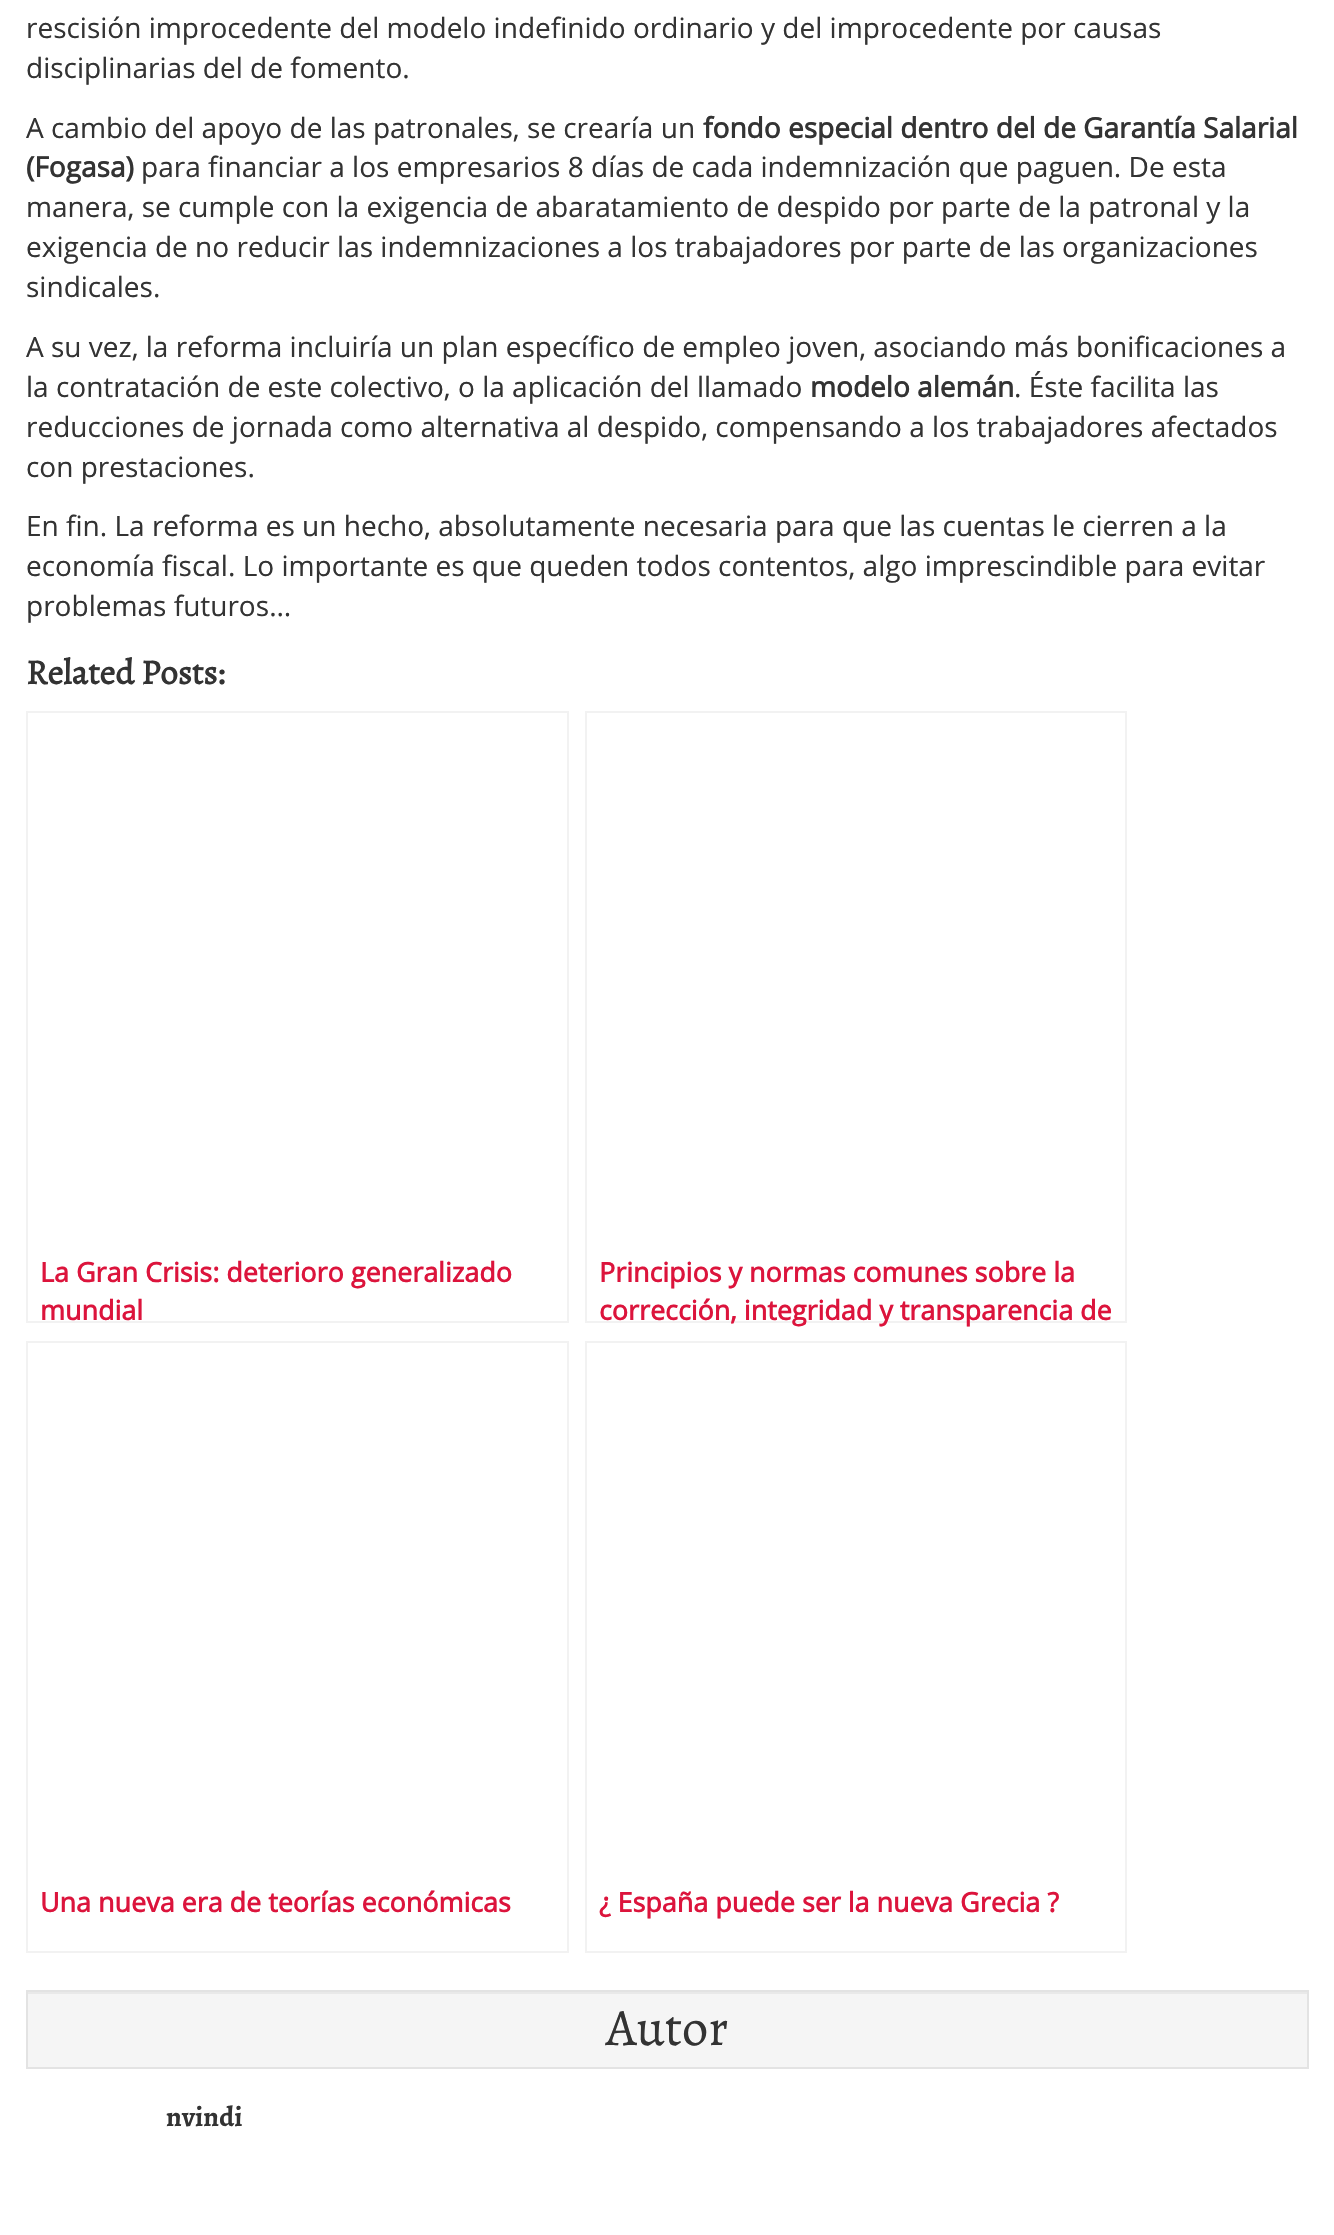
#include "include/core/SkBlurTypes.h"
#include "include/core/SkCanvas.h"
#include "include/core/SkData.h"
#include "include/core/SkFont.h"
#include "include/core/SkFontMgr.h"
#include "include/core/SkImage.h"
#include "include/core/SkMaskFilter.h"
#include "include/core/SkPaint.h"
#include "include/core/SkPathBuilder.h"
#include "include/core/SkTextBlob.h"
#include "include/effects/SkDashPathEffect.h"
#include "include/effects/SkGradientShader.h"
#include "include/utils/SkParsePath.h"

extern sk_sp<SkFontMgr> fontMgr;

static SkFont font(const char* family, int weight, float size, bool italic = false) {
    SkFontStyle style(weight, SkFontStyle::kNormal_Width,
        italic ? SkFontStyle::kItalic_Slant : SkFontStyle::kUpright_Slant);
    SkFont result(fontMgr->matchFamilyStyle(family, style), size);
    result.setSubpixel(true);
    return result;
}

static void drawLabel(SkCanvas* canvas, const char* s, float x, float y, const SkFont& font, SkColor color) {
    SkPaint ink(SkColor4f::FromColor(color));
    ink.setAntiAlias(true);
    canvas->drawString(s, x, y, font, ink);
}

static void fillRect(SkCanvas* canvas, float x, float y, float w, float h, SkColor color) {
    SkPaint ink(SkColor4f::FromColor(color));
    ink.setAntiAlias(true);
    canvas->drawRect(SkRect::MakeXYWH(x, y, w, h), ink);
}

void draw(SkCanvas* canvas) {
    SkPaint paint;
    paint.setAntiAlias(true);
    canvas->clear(0xFFFFFFFF);
    SkFont font1 = font("Open Sans", 400, 28);
    drawLabel(canvas, "rescisión improcedente del modelo indefinido ordinario y del improcedente por causas", 26, 38, font1, 0xFF333333);
    drawLabel(canvas, "disciplinarias del de fomento.", 26, 78, font1, 0xFF333333);
    drawLabel(canvas, "A cambio del apoyo de las patronales, se crearía un", 26, 138, font1, 0xFF333333);
    SkFont font2 = font("Open Sans", 700, 28);
    drawLabel(canvas, "fondo especial dentro del de Garantía Salarial", 703, 138, font2, 0xFF333333);
    drawLabel(canvas, "(Fogasa)", 26, 177, font2, 0xFF333333);
    drawLabel(canvas, "para financiar a los empresarios 8 días de cada indemnización que paguen. De esta", 141, 177, font1, 0xFF333333);
    drawLabel(canvas, "manera, se cumple con la exigencia de abaratamiento de despido por parte de la patronal y la", 26, 217, font1, 0xFF333333);
    drawLabel(canvas, "exigencia de no reducir las indemnizaciones a los trabajadores por parte de las organizaciones", 26, 257, font1, 0xFF333333);
    drawLabel(canvas, "sindicales.", 26, 297, font1, 0xFF333333);
    drawLabel(canvas, "A su vez, la reforma incluiría un plan específico de empleo joven, asociando más bonificaciones a", 26, 357, font1, 0xFF333333);
    drawLabel(canvas, "la contratación de este colectivo, o la aplicación del llamado", 26, 397, font1, 0xFF333333);
    drawLabel(canvas, "modelo alemán", 810, 397, font2, 0xFF333333);
    drawLabel(canvas, ". Éste facilita las", 1014, 397, font1, 0xFF333333);
    drawLabel(canvas, "reducciones de jornada como alternativa al despido, compensando a los trabajadores afectados", 26, 437, font1, 0xFF333333);
    drawLabel(canvas, "con prestaciones.", 26, 477, font1, 0xFF333333);
    drawLabel(canvas, "En fin. La reforma es un hecho, absolutamente necesaria para que las cuentas le cierren a la", 26, 536, font1, 0xFF333333);
    drawLabel(canvas, "economía fiscal. Lo importante es que queden todos contentos, algo imprescindible para evitar", 26, 576, font1, 0xFF333333);
    drawLabel(canvas, "problemas futuros…", 26, 616, font1, 0xFF333333);
    SkFont font3 = font("Alegreya", 700, 35);
    drawLabel(canvas, "Related Posts:", 26, 684, font3, 0xFF333333);
    paint.setStroke(true);
    paint.setStrokeWidth(2);
    paint.setColor(0xFFF2F2F2);
    canvas->drawRect(SkRect::MakeXYWH(27, 712, 541, 610), paint);
    SkFont font4 = font("Open Sans", 700, 26.9f);
    drawLabel(canvas, "La Gran Crisis: deterioro generalizado", 40, 1282, font4, 0xFFDC143C);
    drawLabel(canvas, "mundial", 40, 1320, font4, 0xFFDC143C);
    canvas->drawRect(SkRect::MakeXYWH(586, 712, 540, 610), paint);
    drawLabel(canvas, "Principios y normas comunes sobre la", 599, 1282, font4, 0xFFDC143C);
    drawLabel(canvas, "corrección, integridad y transparencia de", 599, 1320, font4, 0xFFDC143C);
    canvas->drawRect(SkRect::MakeXYWH(27, 1342, 541, 610), paint);
    drawLabel(canvas, "Una nueva era de teorías económicas", 40, 1912, font4, 0xFFDC143C);
    canvas->drawRect(SkRect::MakeXYWH(586, 1342, 540, 610), paint);
    drawLabel(canvas, "¿ España puede ser la nueva Grecia ?", 599, 1912, font4, 0xFFDC143C);
    fillRect(canvas, 28, 1994, 1279, 73, 0xFFF5F5F5);
    fillRect(canvas, 28, 1992, 1279, 2, 0xFFE9E9E9);
    paint.setColor(0xFFE3E3E3);
    canvas->drawRect(SkRect::MakeXYWH(27, 1991, 1281, 77), paint);
    SkFont font5 = font("Alegreya", 400, 52.5f);
    drawLabel(canvas, "Autor", 606, 2045, font5, 0xFF333333);
    SkFont font6 = font("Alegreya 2", 700, 28);
    drawLabel(canvas, "nvindi", 166, 2126, font6, 0xFF333333);
}
